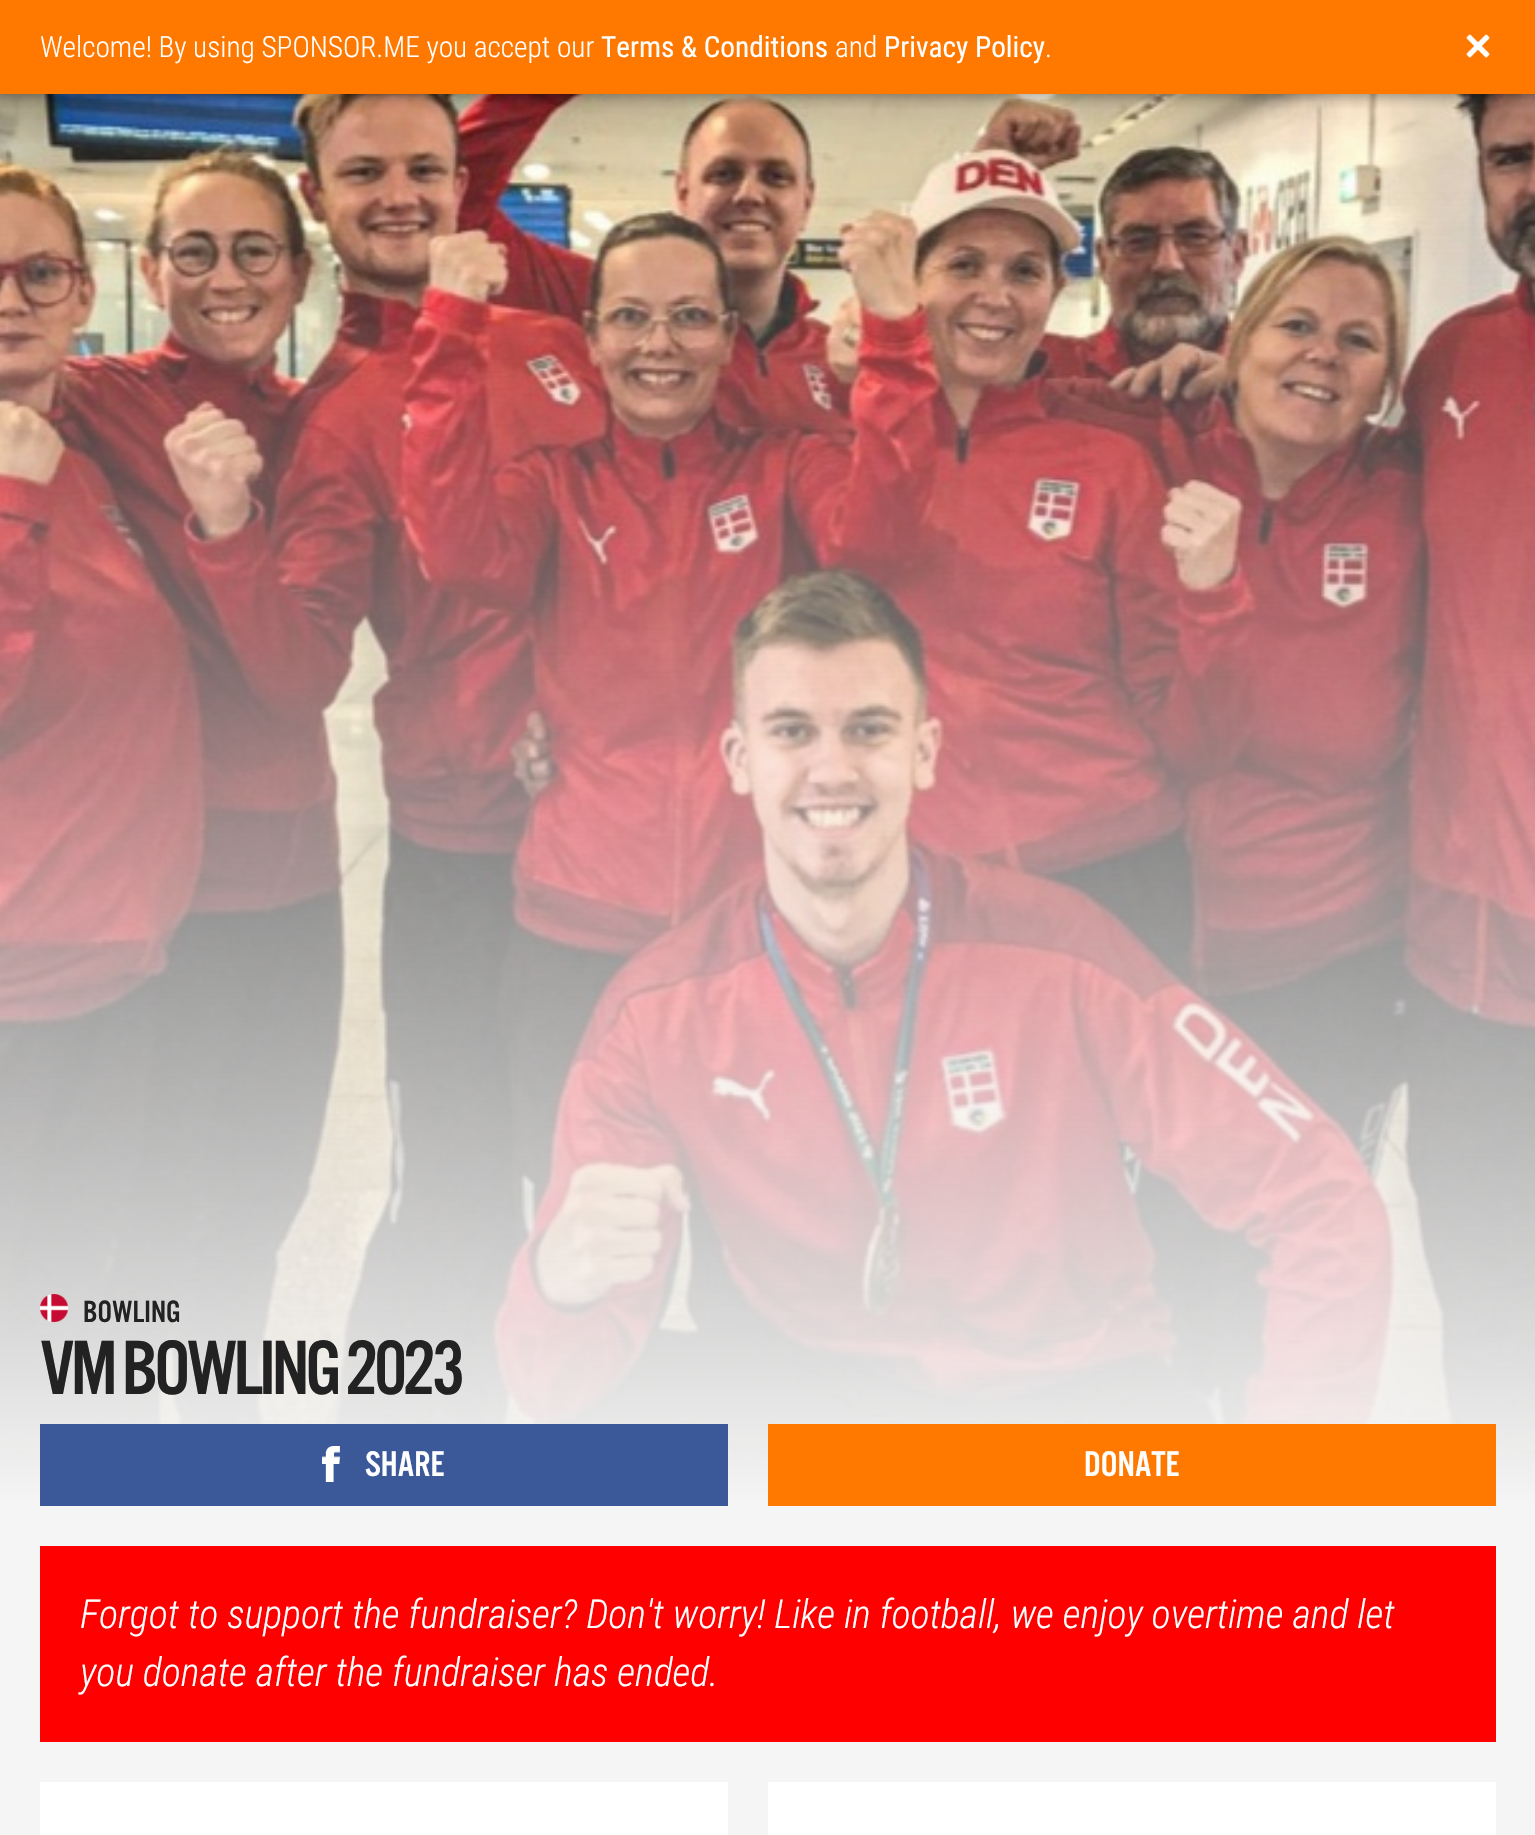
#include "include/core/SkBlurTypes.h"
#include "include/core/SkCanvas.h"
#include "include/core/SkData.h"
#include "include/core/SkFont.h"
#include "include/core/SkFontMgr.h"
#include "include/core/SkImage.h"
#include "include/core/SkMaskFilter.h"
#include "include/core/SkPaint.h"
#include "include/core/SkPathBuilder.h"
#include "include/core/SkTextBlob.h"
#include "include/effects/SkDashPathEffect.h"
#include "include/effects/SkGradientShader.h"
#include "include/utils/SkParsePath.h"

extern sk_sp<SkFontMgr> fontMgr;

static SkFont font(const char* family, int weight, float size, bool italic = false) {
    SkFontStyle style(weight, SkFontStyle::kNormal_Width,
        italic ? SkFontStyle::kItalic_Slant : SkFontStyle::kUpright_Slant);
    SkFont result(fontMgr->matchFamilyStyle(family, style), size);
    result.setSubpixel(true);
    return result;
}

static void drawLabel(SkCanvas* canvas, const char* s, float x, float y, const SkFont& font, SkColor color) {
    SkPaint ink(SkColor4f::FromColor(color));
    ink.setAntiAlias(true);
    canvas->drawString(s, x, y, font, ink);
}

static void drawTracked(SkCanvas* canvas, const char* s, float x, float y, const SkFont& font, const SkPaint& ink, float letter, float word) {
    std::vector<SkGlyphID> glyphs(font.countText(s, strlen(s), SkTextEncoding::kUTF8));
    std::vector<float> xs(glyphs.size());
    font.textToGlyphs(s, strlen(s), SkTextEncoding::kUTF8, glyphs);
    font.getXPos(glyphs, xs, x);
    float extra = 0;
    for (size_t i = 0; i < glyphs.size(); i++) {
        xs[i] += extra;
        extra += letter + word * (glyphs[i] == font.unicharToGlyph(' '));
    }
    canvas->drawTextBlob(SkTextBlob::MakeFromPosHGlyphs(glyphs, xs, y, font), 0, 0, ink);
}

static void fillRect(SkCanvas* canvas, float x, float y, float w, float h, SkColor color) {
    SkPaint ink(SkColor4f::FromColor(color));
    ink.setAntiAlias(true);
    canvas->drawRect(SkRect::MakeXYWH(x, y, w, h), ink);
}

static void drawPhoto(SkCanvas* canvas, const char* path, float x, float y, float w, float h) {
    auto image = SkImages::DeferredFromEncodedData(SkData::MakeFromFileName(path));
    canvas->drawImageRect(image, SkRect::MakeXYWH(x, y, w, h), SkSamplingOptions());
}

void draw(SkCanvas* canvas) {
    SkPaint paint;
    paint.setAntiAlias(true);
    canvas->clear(0xFFF5F5F5);
    drawPhoto(canvas, "assets/img2.png", 0, 94, 1535, 1412);
    paint.setColor(0x33000000);
    paint.setMaskFilter(SkMaskFilter::MakeBlur(kNormal_SkBlurStyle, 4));
    canvas->drawRect(SkRect::MakeXYWH(0, 0, 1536, 96), paint);
    paint.setMaskFilter(nullptr);
    fillRect(canvas, 0, 0, 1535, 94, 0xFFFF7800);
    SkFont font1 = font("Roboto Condensed", 300, 29.3f);
    drawLabel(canvas, "Welcome! By using SPONSOR.ME you accept our", 40, 57, font1, 0xFFFFFFFF);
    SkFont font2 = font("Roboto Condensed", 400, 29.3f);
    drawLabel(canvas, "Terms & Conditions", 601, 57, font2, 0xFFFFFFFF);
    drawLabel(canvas, "and", 835, 57, font1, 0xFFFFFFFF);
    drawLabel(canvas, "Privacy Policy", 884, 57, font2, 0xFFFFFFFF);
    drawLabel(canvas, ".", 1045, 57, font1, 0xFFFFFFFF);
    drawPhoto(canvas, "assets/img1.png", 1466, 34, 24, 24);
    drawPhoto(canvas, "assets/img3.png", 40, 1294, 28, 28);
    SkFont font3 = font("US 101", 400, 32);
    drawLabel(canvas, "BOWLING", 83, 1322, font3, 0xFF222222);
    SkFont font4 = font("US 101", 400, 80);
    paint.setColor(0xFF222222);
    drawTracked(canvas, "VM BOWLING 2023", 40, 1394, font4, paint, -4, 0);
    fillRect(canvas, 40, 1424, 688, 82, 0xFF3B5998);
    drawPhoto(canvas, "assets/img4.png", 322, 1446, 18, 36);
    SkFont font5 = font("US 101", 400, 37);
    drawLabel(canvas, "SHARE", 365, 1476, font5, 0xFFFFFFFF);
    fillRect(canvas, 768, 1424, 728, 82, 0xFFFF7800);
    drawLabel(canvas, "DONATE", 1084, 1476, font5, 0xFFFFFFFF);
    fillRect(canvas, 40, 1546, 1456, 196, 0xFFFF0000);
    SkFont font6 = font("Roboto Condensed", 300, 40, true);
    drawLabel(canvas, "Forgot to support the fundraiser? Don't worry! Like in football, we enjoy overtime and let", 80, 1628, font6, 0xFFFFFFFF);
    drawLabel(canvas, "you donate after the fundraiser has ended.", 80, 1686, font6, 0xFFFFFFFF);
    fillRect(canvas, 40, 1782, 688, 53, 0xFFFFFFFF);
    fillRect(canvas, 768, 1782, 728, 53, 0xFFFFFFFF);
}
